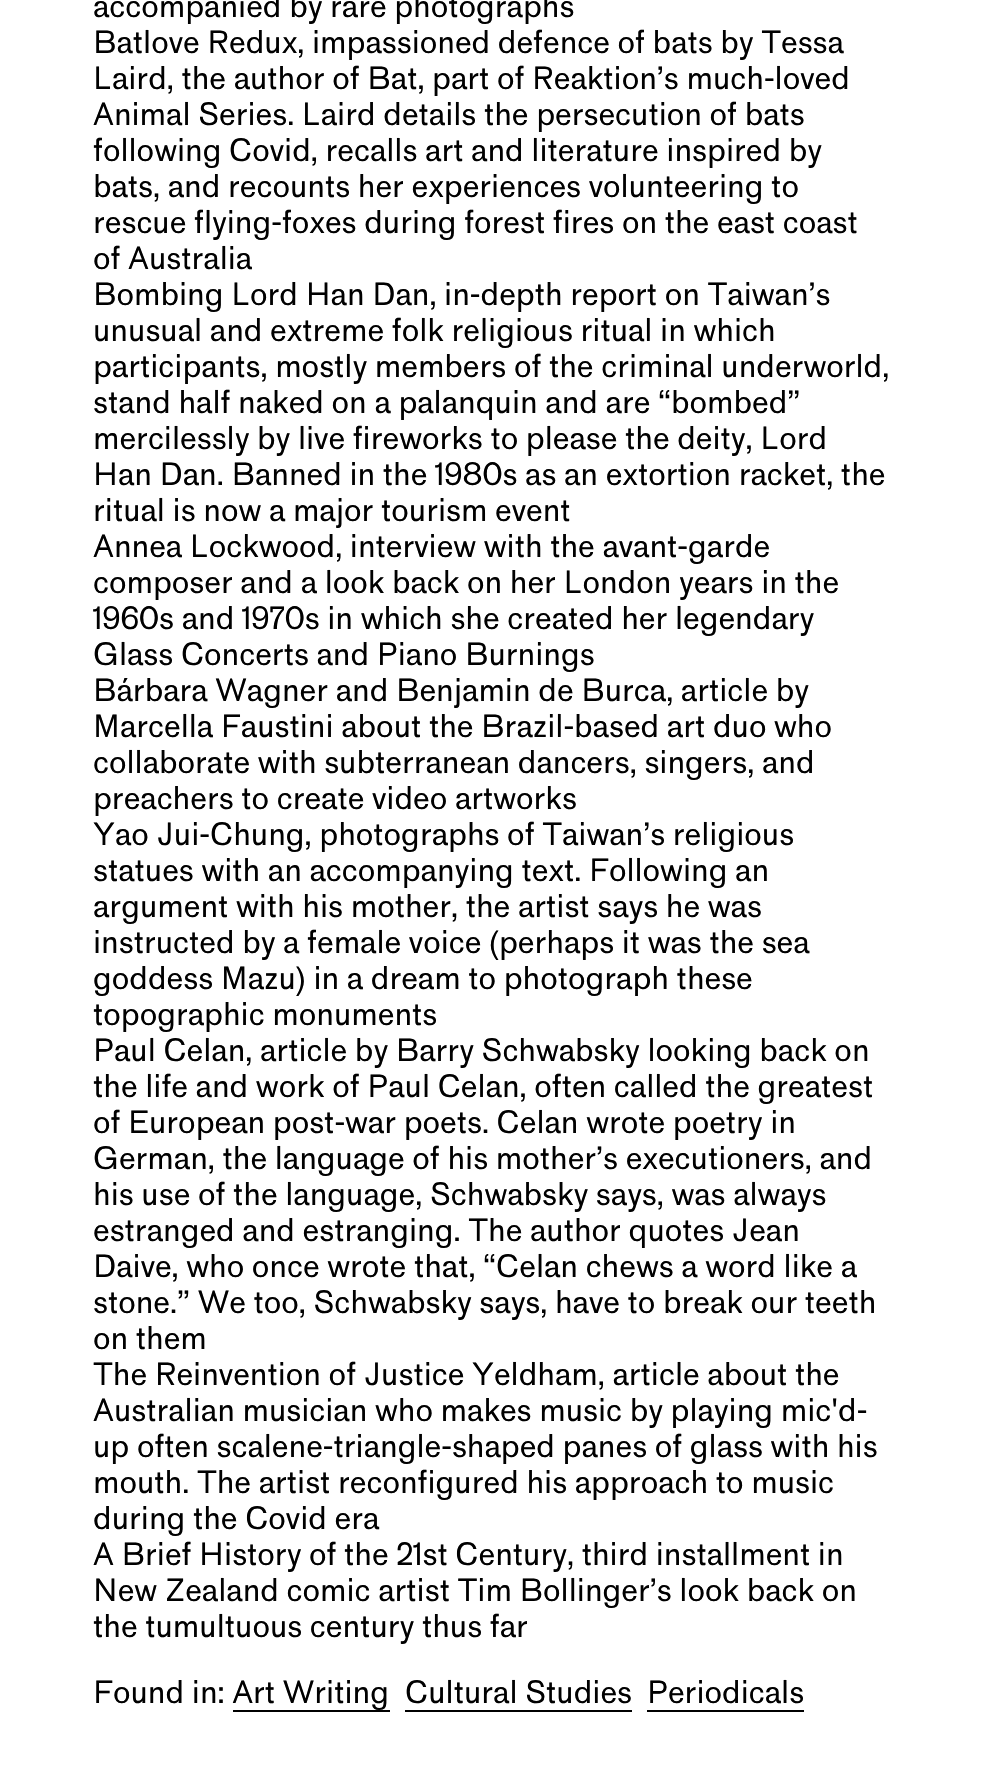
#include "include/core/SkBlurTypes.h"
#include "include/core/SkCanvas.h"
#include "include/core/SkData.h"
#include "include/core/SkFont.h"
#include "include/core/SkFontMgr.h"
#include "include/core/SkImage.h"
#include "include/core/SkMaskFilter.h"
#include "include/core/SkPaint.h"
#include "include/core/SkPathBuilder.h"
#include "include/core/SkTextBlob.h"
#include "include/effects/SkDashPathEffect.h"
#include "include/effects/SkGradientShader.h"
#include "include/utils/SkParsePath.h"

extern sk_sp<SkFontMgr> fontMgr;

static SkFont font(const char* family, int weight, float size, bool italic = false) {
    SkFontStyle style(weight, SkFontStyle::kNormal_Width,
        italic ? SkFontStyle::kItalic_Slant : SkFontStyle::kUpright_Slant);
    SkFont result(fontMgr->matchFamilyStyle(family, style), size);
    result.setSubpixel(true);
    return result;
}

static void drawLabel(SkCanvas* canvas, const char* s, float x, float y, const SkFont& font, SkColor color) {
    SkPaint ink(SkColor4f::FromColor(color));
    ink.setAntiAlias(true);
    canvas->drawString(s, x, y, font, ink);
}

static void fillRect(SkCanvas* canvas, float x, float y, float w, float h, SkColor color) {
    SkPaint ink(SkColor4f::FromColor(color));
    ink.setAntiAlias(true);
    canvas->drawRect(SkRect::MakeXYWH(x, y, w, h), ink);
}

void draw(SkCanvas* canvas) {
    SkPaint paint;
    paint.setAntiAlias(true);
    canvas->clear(0xFFFFFFFF);
    SkFont font1 = font("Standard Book", 400, 30);
    drawLabel(canvas, "accompanied by rare photographs", 93, 17, font1, 0xFF000000);
    drawLabel(canvas, "Batlove Redux, impassioned defence of bats by Tessa", 93, 53, font1, 0xFF000000);
    drawLabel(canvas, "Laird, the author of Bat, part of Reaktion’s much-loved", 93, 89, font1, 0xFF000000);
    drawLabel(canvas, "Animal Series. Laird details the persecution of bats", 93, 125, font1, 0xFF000000);
    drawLabel(canvas, "following Covid, recalls art and literature inspired by", 93, 161, font1, 0xFF000000);
    drawLabel(canvas, "bats, and recounts her experiences volunteering to", 93, 197, font1, 0xFF000000);
    drawLabel(canvas, "rescue flying-foxes during forest fires on the east coast", 93, 233, font1, 0xFF000000);
    drawLabel(canvas, "of Australia", 93, 269, font1, 0xFF000000);
    drawLabel(canvas, "Bombing Lord Han Dan, in-depth report on Taiwan’s", 93, 305, font1, 0xFF000000);
    drawLabel(canvas, "unusual and extreme folk religious ritual in which", 93, 341, font1, 0xFF000000);
    drawLabel(canvas, "participants, mostly members of the criminal underworld,", 93, 377, font1, 0xFF000000);
    drawLabel(canvas, "stand half naked on a palanquin and are “bombed”", 93, 413, font1, 0xFF000000);
    drawLabel(canvas, "mercilessly by live fireworks to please the deity, Lord", 93, 449, font1, 0xFF000000);
    drawLabel(canvas, "Han Dan. Banned in the 1980s as an extortion racket, the", 93, 485, font1, 0xFF000000);
    drawLabel(canvas, "ritual is now a major tourism event", 93, 521, font1, 0xFF000000);
    drawLabel(canvas, "Annea Lockwood, interview with the avant-garde", 93, 557, font1, 0xFF000000);
    drawLabel(canvas, "composer and a look back on her London years in the", 93, 593, font1, 0xFF000000);
    drawLabel(canvas, "1960s and 1970s in which she created her legendary", 93, 629, font1, 0xFF000000);
    drawLabel(canvas, "Glass Concerts and Piano Burnings", 93, 665, font1, 0xFF000000);
    drawLabel(canvas, "Bárbara Wagner and Benjamin de Burca, article by", 93, 701, font1, 0xFF000000);
    drawLabel(canvas, "Marcella Faustini about the Brazil-based art duo who", 93, 737, font1, 0xFF000000);
    drawLabel(canvas, "collaborate with subterranean dancers, singers, and", 93, 773, font1, 0xFF000000);
    drawLabel(canvas, "preachers to create video artworks", 93, 809, font1, 0xFF000000);
    drawLabel(canvas, "Yao Jui-Chung, photographs of Taiwan’s religious", 93, 845, font1, 0xFF000000);
    drawLabel(canvas, "statues with an accompanying text. Following an", 93, 881, font1, 0xFF000000);
    drawLabel(canvas, "argument with his mother, the artist says he was", 93, 917, font1, 0xFF000000);
    drawLabel(canvas, "instructed by a female voice (perhaps it was the sea", 93, 953, font1, 0xFF000000);
    drawLabel(canvas, "goddess Mazu) in a dream to photograph these", 93, 989, font1, 0xFF000000);
    drawLabel(canvas, "topographic monuments", 93, 1025, font1, 0xFF000000);
    drawLabel(canvas, "Paul Celan, article by Barry Schwabsky looking back on", 93, 1061, font1, 0xFF000000);
    drawLabel(canvas, "the life and work of Paul Celan, often called the greatest", 93, 1097, font1, 0xFF000000);
    drawLabel(canvas, "of European post-war poets. Celan wrote poetry in", 93, 1133, font1, 0xFF000000);
    drawLabel(canvas, "German, the language of his mother’s executioners, and", 93, 1169, font1, 0xFF000000);
    drawLabel(canvas, "his use of the language, Schwabsky says, was always", 93, 1205, font1, 0xFF000000);
    drawLabel(canvas, "estranged and estranging. The author quotes Jean", 93, 1241, font1, 0xFF000000);
    drawLabel(canvas, "Daive, who once wrote that, “Celan chews a word like a", 93, 1277, font1, 0xFF000000);
    drawLabel(canvas, "stone.” We too, Schwabsky says, have to break our teeth", 93, 1313, font1, 0xFF000000);
    drawLabel(canvas, "on them", 93, 1349, font1, 0xFF000000);
    drawLabel(canvas, "The Reinvention of Justice Yeldham, article about the", 93, 1385, font1, 0xFF000000);
    drawLabel(canvas, "Australian musician who makes music by playing mic'd-", 93, 1421, font1, 0xFF000000);
    drawLabel(canvas, "up often scalene-triangle-shaped panes of glass with his", 93, 1457, font1, 0xFF000000);
    drawLabel(canvas, "mouth. The artist reconfigured his approach to music", 93, 1493, font1, 0xFF000000);
    drawLabel(canvas, "during the Covid era", 93, 1529, font1, 0xFF000000);
    drawLabel(canvas, "A Brief History of the 21st Century, third installment in", 93, 1565, font1, 0xFF000000);
    drawLabel(canvas, "New Zealand comic artist Tim Bollinger’s look back on", 93, 1601, font1, 0xFF000000);
    drawLabel(canvas, "the tumultuous century thus far", 93, 1637, font1, 0xFF000000);
    drawLabel(canvas, "Found in: Art Writing", 93, 1703, font1, 0xFF000000);
    drawLabel(canvas, "Cultural Studies", 405, 1703, font1, 0xFF000000);
    fillRect(canvas, 405, 1710, 227, 2, 0xFF000000);
    drawLabel(canvas, "Periodicals", 647, 1703, font1, 0xFF000000);
    fillRect(canvas, 647, 1710, 157, 2, 0xFF000000);
    fillRect(canvas, 233, 1710, 157, 2, 0xFF000000);
}
